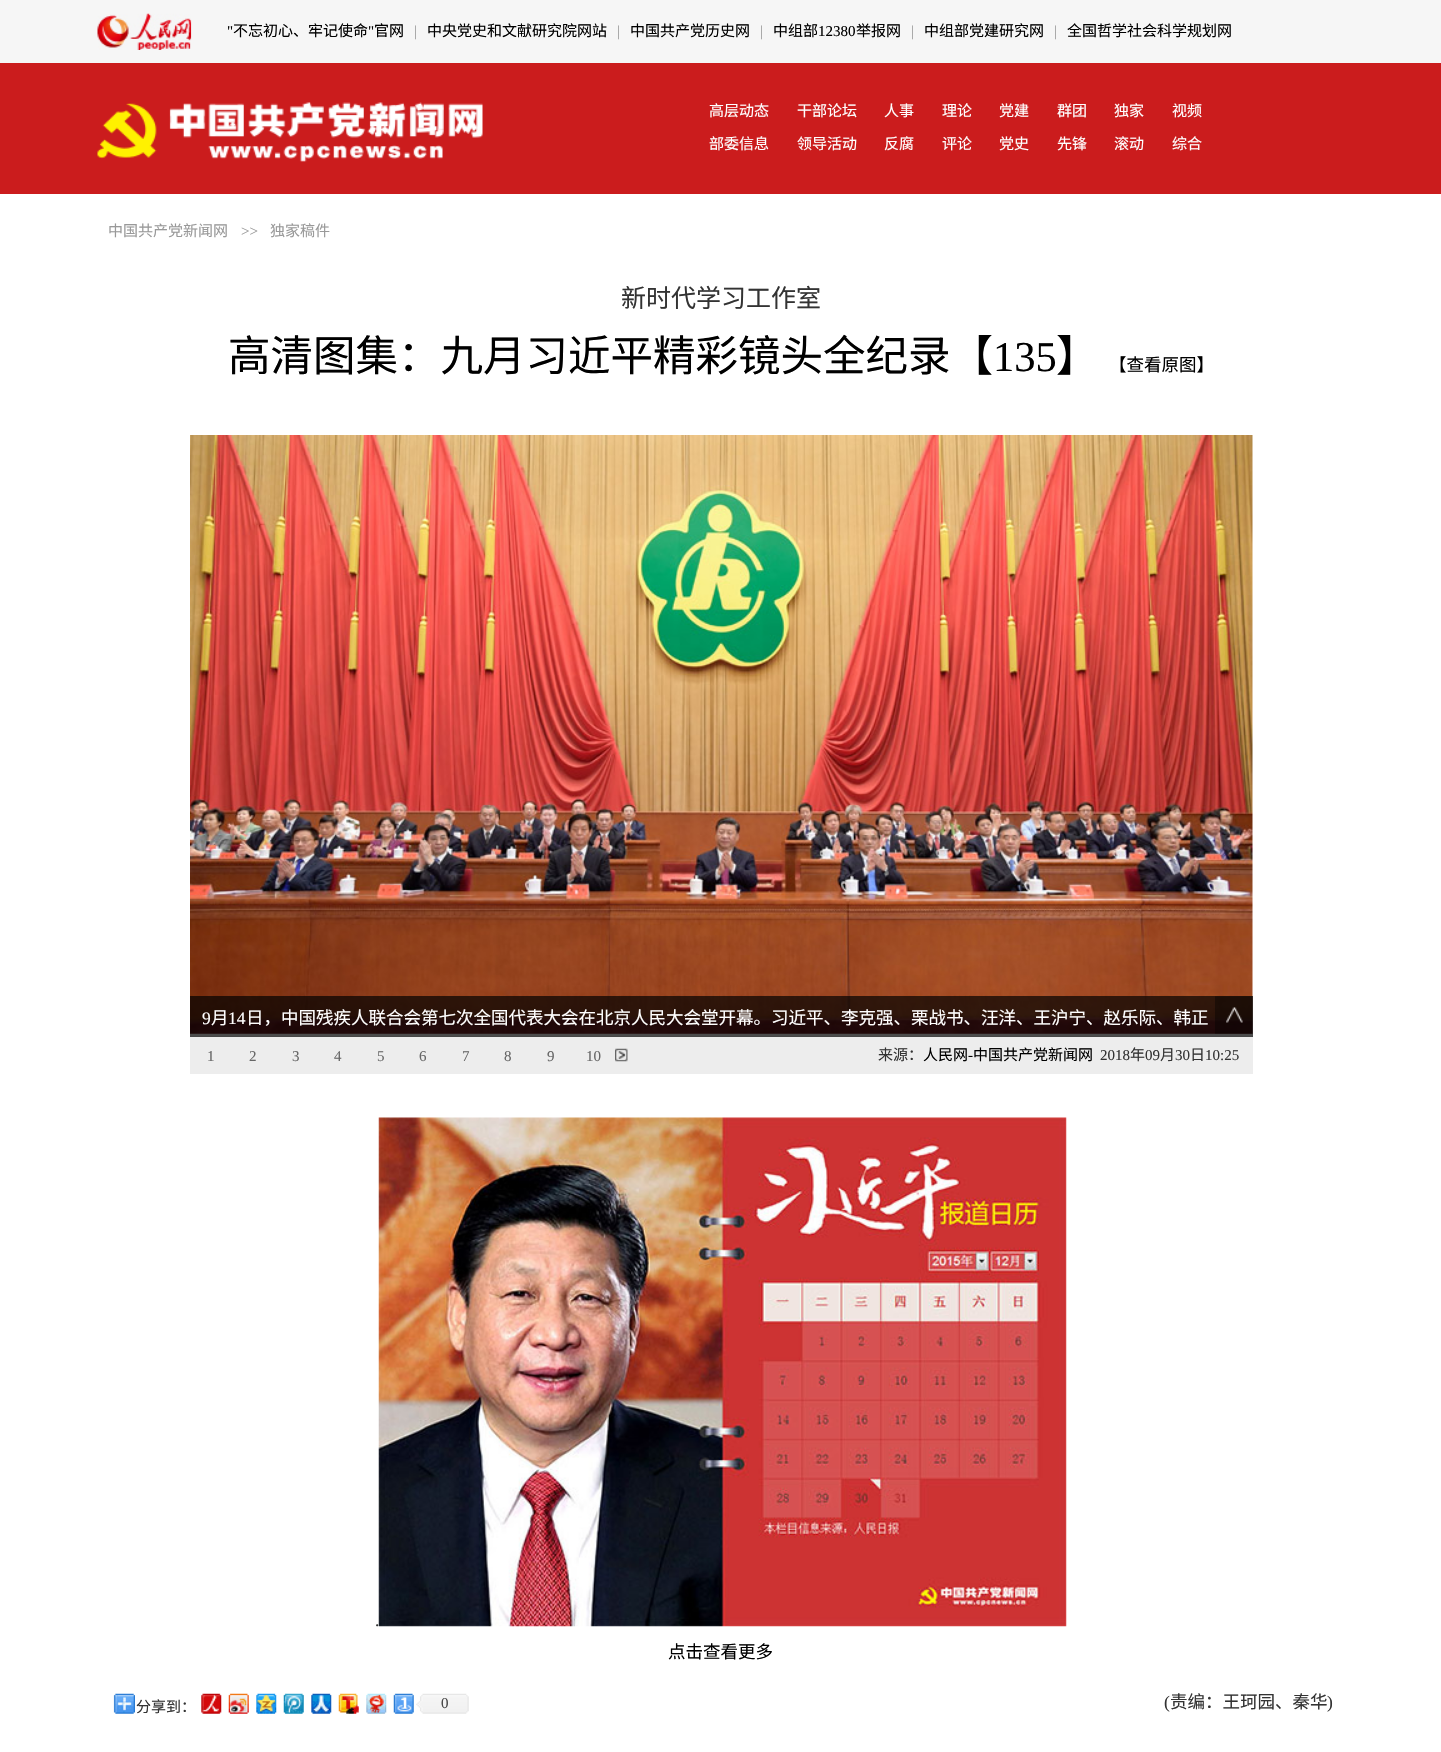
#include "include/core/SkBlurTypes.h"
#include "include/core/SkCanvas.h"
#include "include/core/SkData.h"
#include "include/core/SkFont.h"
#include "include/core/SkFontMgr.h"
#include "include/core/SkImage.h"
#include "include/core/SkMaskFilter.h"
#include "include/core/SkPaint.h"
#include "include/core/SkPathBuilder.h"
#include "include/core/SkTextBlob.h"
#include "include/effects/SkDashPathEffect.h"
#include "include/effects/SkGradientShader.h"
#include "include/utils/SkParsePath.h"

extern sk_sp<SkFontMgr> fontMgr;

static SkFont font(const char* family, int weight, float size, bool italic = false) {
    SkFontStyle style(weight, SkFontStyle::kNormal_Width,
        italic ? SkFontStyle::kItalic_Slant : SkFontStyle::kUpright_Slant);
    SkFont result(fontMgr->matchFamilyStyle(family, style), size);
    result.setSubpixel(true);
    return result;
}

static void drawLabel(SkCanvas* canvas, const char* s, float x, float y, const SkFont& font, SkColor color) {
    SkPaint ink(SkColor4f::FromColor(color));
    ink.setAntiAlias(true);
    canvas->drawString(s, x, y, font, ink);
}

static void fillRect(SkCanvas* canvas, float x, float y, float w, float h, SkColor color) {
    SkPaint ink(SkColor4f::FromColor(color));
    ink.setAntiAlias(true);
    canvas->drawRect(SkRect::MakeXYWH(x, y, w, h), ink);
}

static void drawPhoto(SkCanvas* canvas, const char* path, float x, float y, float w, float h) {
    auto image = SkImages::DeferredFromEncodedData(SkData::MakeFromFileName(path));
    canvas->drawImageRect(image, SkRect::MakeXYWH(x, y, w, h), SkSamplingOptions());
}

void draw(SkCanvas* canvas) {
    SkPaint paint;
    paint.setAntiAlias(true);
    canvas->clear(0xFFFFFFFF);
    fillRect(canvas, 0, 0, 1441, 63, 0xFFF6F6F6);
    drawPhoto(canvas, "assets/img1.png", 97, 13, 95, 37);
    SkFont font1 = font("Liberation Serif", 400, 15);
    drawLabel(canvas, "\"", 227, 36, font1, 0xFF000000);
    SkFont font2 = font("Noto Sans CJK SC", 400, 15);
    drawLabel(canvas, "不忘初心、牢记使命", 233, 36, font2, 0xFF000000);
    drawLabel(canvas, "\"", 368, 36, font1, 0xFF000000);
    drawLabel(canvas, "官网", 374, 36, font2, 0xFF000000);
    drawLabel(canvas, "|", 414, 36, font1, 0xFF999999);
    drawLabel(canvas, "中央党史和文献研究院网站", 427, 36, font2, 0xFF000000);
    drawLabel(canvas, "|", 617, 36, font1, 0xFF999999);
    drawLabel(canvas, "中国共产党历史网", 630, 36, font2, 0xFF000000);
    drawLabel(canvas, "|", 760, 36, font1, 0xFF999999);
    drawLabel(canvas, "中组部", 773, 36, font2, 0xFF000000);
    drawLabel(canvas, "12380", 818, 36, font1, 0xFF000000);
    drawLabel(canvas, "举报网", 856, 36, font2, 0xFF000000);
    drawLabel(canvas, "|", 911, 36, font1, 0xFF999999);
    drawLabel(canvas, "中组部党建研究网", 924, 36, font2, 0xFF000000);
    drawLabel(canvas, "|", 1054, 36, font1, 0xFF999999);
    drawLabel(canvas, "全国哲学社会科学规划网", 1067, 36, font2, 0xFF000000);
    fillRect(canvas, 0, 63, 1441, 131, 0xFFCB1C1D);
    drawPhoto(canvas, "assets/img2.png", 97, 102, 386, 60);
    drawLabel(canvas, "高层动态", 709, 116, font2, 0xFFFFFFFF);
    drawLabel(canvas, "干部论坛", 797, 116, font2, 0xFFFFFFFF);
    drawLabel(canvas, "人事", 884, 116, font2, 0xFFFFFFFF);
    drawLabel(canvas, "理论", 942, 116, font2, 0xFFFFFFFF);
    drawLabel(canvas, "党建", 999, 116, font2, 0xFFFFFFFF);
    drawLabel(canvas, "群团", 1057, 116, font2, 0xFFFFFFFF);
    drawLabel(canvas, "独家", 1114, 116, font2, 0xFFFFFFFF);
    drawLabel(canvas, "视频", 1172, 116, font2, 0xFFFFFFFF);
    drawLabel(canvas, "部委信息", 709, 149, font2, 0xFFFFFFFF);
    drawLabel(canvas, "领导活动", 797, 149, font2, 0xFFFFFFFF);
    drawLabel(canvas, "反腐", 884, 149, font2, 0xFFFFFFFF);
    drawLabel(canvas, "评论", 942, 149, font2, 0xFFFFFFFF);
    drawLabel(canvas, "党史", 999, 149, font2, 0xFFFFFFFF);
    drawLabel(canvas, "先锋", 1057, 149, font2, 0xFFFFFFFF);
    drawLabel(canvas, "滚动", 1114, 149, font2, 0xFFFFFFFF);
    drawLabel(canvas, "综合", 1172, 149, font2, 0xFFFFFFFF);
    drawLabel(canvas, "中国共产党新闻网", 108, 236, font2, 0xFF999999);
    drawLabel(canvas, ">>", 241, 236, font1, 0xFF999999);
    drawLabel(canvas, "独家稿件", 270, 236, font2, 0xFF999999);
    SkFont font3 = font("Noto Sans CJK SC", 400, 25);
    drawLabel(canvas, "新时代学习工作室", 621, 307, font3, 0xFF333333);
    SkFont font4 = font("Noto Sans CJK SC", 400, 42.5f);
    drawLabel(canvas, "高清图集：九月习近平精彩镜头全纪录【", 228, 371, font4, 0xFF000000);
    SkFont font5 = font("Liberation Serif", 400, 42.5f);
    drawLabel(canvas, "135", 993, 371, font5, 0xFF000000);
    drawLabel(canvas, "】", 1056, 371, font4, 0xFF000000);
    SkFont font6 = font("Noto Sans CJK SC", 400, 17.5f);
    drawLabel(canvas, "【查看原图】", 1109, 371, font6, 0xFF000000);
    drawPhoto(canvas, "assets/img3.png", 190, 435, 1063, 599);
    fillRect(canvas, 190, 1036, 1063, 38, 0xFFEDEDED);
    fillRect(canvas, 190, 996, 1063, 41, 0xB3000000);
    SkFont font7 = font("Liberation Serif", 400, 17.5f);
    drawLabel(canvas, "9", 202, 1024, font7, 0xFFFFFFFF);
    drawLabel(canvas, "月", 211, 1024, font6, 0xFFFFFFFF);
    drawLabel(canvas, "14", 228, 1024, font7, 0xFFFFFFFF);
    drawLabel(canvas, "日，中国残疾人联合会第七次全国代表大会在北京人民大会堂开幕。习近平、李克强、栗战书、汪洋、王沪宁、赵乐际、韩正", 246, 1024, font6, 0xFFFFFFFF);
    drawPhoto(canvas, "assets/img4.png", 1215, 996, 38, 38);
    drawLabel(canvas, "1", 207, 1061, font1, 0xFF666666);
    drawLabel(canvas, "2", 249, 1061, font1, 0xFF666666);
    drawLabel(canvas, "3", 292, 1061, font1, 0xFF666666);
    drawLabel(canvas, "4", 334, 1061, font1, 0xFF666666);
    drawLabel(canvas, "5", 377, 1061, font1, 0xFF666666);
    drawLabel(canvas, "6", 419, 1061, font1, 0xFF666666);
    drawLabel(canvas, "7", 462, 1061, font1, 0xFF666666);
    drawLabel(canvas, "8", 504, 1061, font1, 0xFF666666);
    drawLabel(canvas, "9", 547, 1061, font1, 0xFF666666);
    drawLabel(canvas, "10", 586, 1061, font1, 0xFF666666);
    drawPhoto(canvas, "assets/img5.png", 615, 1048, 13, 14);
    drawLabel(canvas, "来源：", 878, 1060, font2, 0xFF333333);
    drawLabel(canvas, "人民网", 923, 1060, font2, 0xFF000000);
    drawLabel(canvas, "-", 968, 1060, font1, 0xFF000000);
    drawLabel(canvas, "中国共产党新闻网", 973, 1060, font2, 0xFF000000);
    drawLabel(canvas, "2018", 1100, 1060, font1, 0xFF333333);
    drawLabel(canvas, "年", 1130, 1060, font2, 0xFF333333);
    drawLabel(canvas, "09", 1145, 1060, font1, 0xFF333333);
    drawLabel(canvas, "月", 1160, 1060, font2, 0xFF333333);
    drawLabel(canvas, "30", 1175, 1060, font1, 0xFF333333);
    drawLabel(canvas, "日", 1190, 1060, font2, 0xFF333333);
    drawLabel(canvas, "10:25", 1205, 1060, font1, 0xFF333333);
    drawLabel(canvas, ".", 375, 1626, font7, 0xFF333333);
    drawPhoto(canvas, "assets/img6.png", 378, 1117, 689, 510);
    drawLabel(canvas, "点击查看更多", 668, 1658, font6, 0xFF000000);
    drawPhoto(canvas, "assets/img7.png", 113, 1693, 22, 21);
    drawLabel(canvas, "分享到：", 136, 1712, font2, 0xFF333333);
    drawPhoto(canvas, "assets/img8.png", 201, 1693, 21, 21);
    drawPhoto(canvas, "assets/img9.png", 228, 1693, 21, 21);
    drawPhoto(canvas, "assets/img10.png", 256, 1693, 21, 21);
    drawPhoto(canvas, "assets/img11.png", 283, 1693, 21, 21);
    drawPhoto(canvas, "assets/img12.png", 311, 1693, 21, 21);
    drawPhoto(canvas, "assets/img13.png", 338, 1693, 21, 21);
    drawPhoto(canvas, "assets/img14.png", 366, 1693, 21, 21);
    drawPhoto(canvas, "assets/img15.png", 393, 1693, 21, 21);
    drawPhoto(canvas, "assets/img16.png", 416, 1693, 53, 21);
    drawLabel(canvas, "0", 441, 1708, font1, 0xFF454545);
    drawLabel(canvas, "(", 1164, 1708, font7, 0xFF333333);
    drawLabel(canvas, "责编：王珂园、秦华", 1170, 1708, font6, 0xFF333333);
    drawLabel(canvas, ")", 1327, 1708, font7, 0xFF333333);
}
